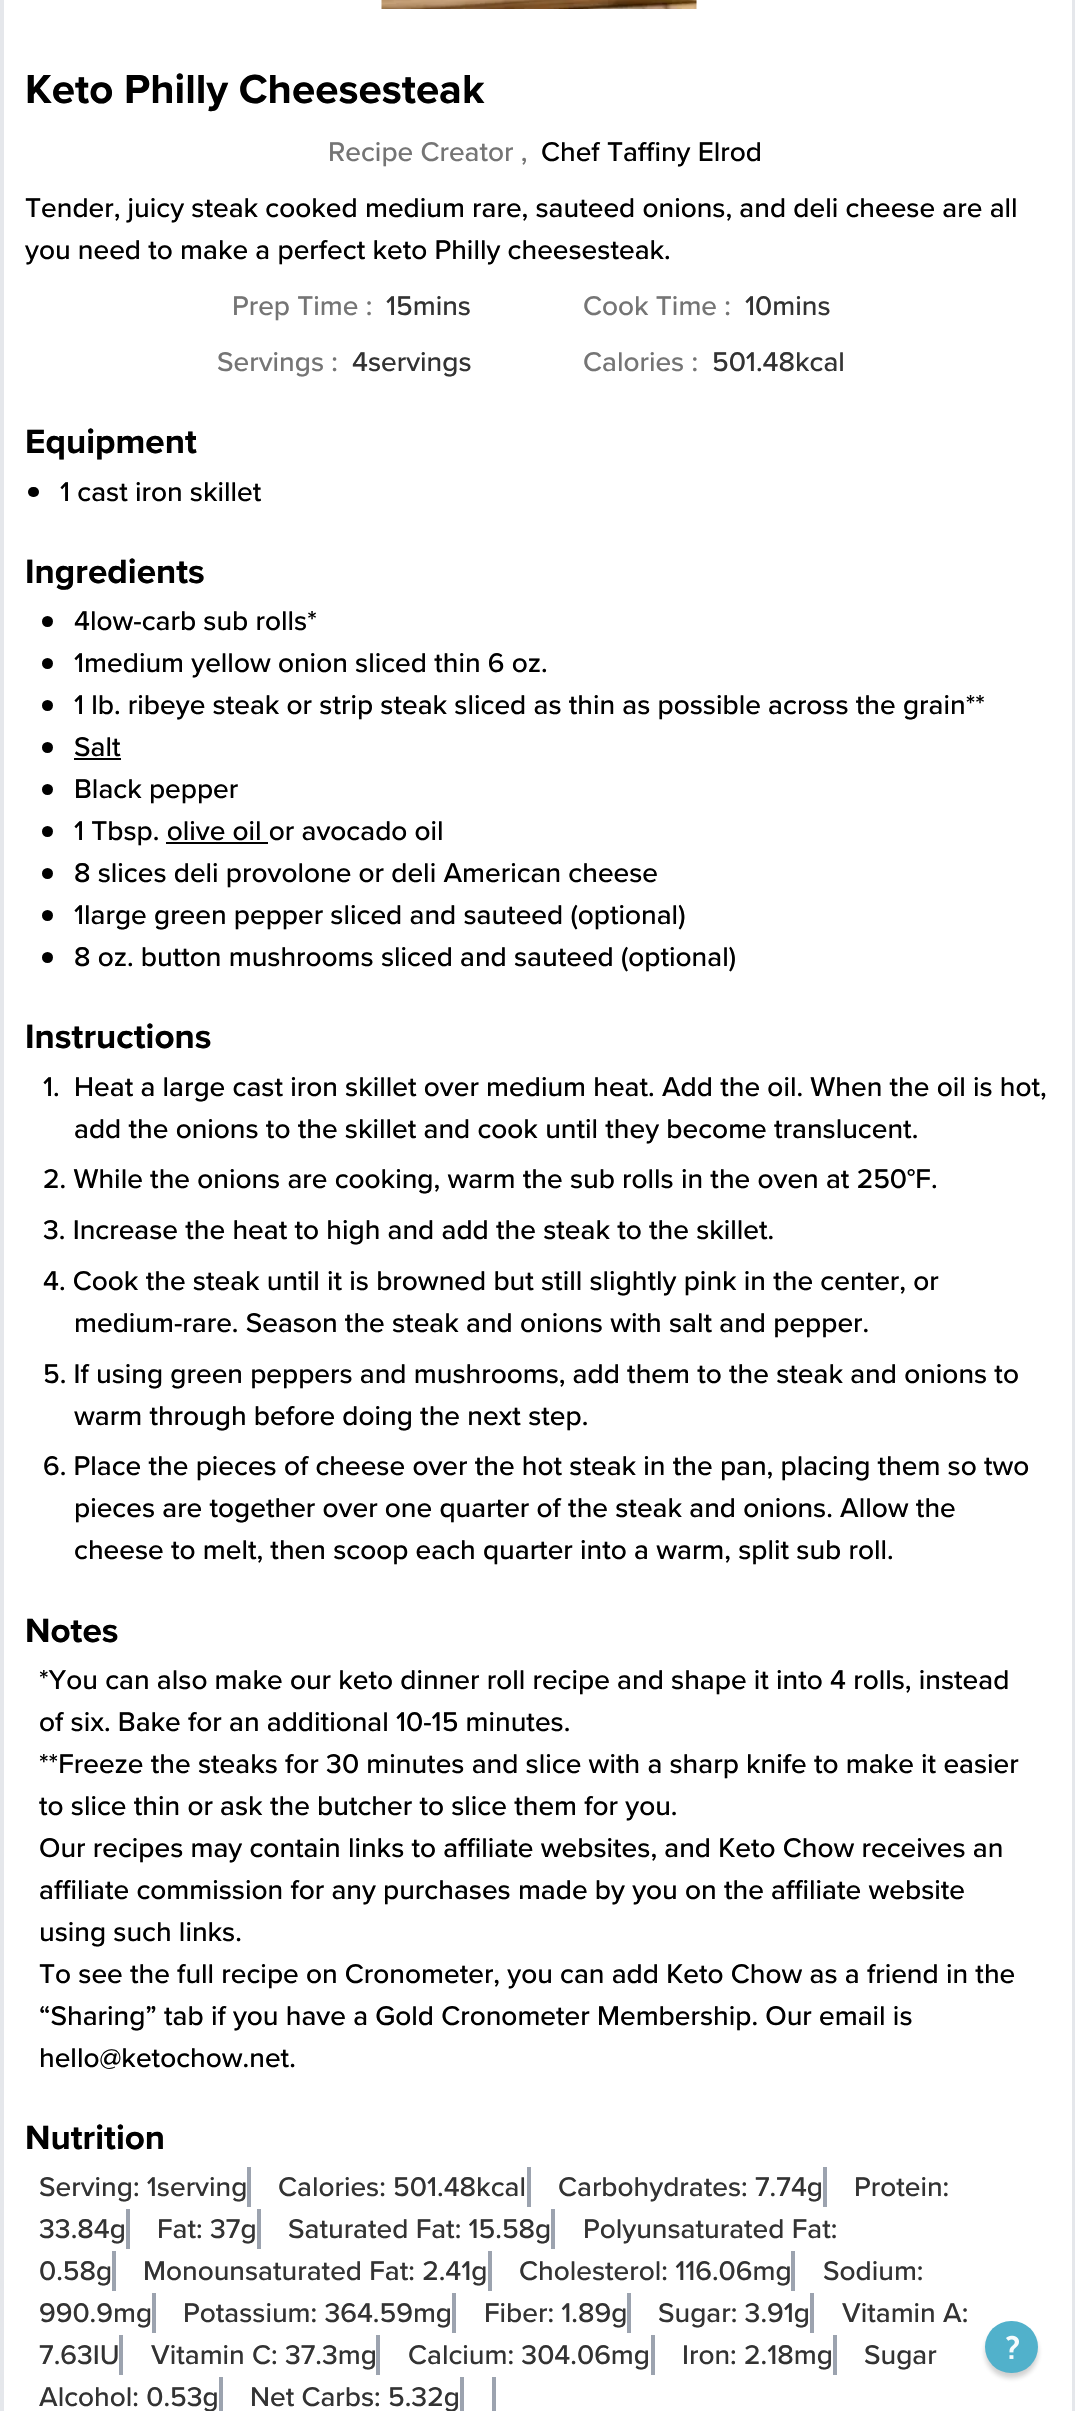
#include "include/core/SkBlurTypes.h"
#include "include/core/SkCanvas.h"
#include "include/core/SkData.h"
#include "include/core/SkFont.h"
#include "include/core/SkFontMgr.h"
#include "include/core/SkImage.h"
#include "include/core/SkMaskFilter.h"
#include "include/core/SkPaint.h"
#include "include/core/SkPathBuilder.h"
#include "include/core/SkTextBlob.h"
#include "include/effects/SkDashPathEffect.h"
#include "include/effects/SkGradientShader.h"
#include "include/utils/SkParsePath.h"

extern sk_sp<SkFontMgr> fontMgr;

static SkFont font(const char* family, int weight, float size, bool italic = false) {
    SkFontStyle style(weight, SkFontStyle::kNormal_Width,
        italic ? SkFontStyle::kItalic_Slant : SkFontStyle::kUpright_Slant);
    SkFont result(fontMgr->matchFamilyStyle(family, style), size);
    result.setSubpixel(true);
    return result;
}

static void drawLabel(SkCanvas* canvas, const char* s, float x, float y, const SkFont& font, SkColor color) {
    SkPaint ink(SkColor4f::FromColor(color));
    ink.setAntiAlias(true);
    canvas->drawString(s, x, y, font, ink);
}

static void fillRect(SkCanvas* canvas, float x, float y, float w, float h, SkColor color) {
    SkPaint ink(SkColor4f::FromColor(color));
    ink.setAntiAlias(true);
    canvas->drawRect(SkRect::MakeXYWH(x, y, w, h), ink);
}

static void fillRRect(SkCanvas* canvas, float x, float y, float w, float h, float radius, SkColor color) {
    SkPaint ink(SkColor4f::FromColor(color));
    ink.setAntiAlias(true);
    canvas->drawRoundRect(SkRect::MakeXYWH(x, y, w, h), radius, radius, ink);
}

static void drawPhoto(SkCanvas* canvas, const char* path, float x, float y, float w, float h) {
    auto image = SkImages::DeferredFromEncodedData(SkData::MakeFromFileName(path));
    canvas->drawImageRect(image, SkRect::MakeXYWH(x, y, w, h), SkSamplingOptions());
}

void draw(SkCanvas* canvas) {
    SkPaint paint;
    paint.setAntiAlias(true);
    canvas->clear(0xFFFFFFFF);
    paint.setStroke(true);
    paint.setStrokeWidth(4);
    paint.setColor(0xFFE5E7EB);
    canvas->drawRect(SkRect::MakeXYWH(2, -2, 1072, 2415), paint);
    drawPhoto(canvas, "assets/img1.png", 381, 0, 316, 9);
    SkFont font1 = font("Proxima Nova", 700, 42);
    drawLabel(canvas, "Keto Philly Cheesesteak", 25, 103, font1, 0xFF000000);
    SkFont font2 = font("Proxima Nova", 500, 28);
    drawLabel(canvas, "Recipe Creator ,", 328, 161, font2, 0xFF757575);
    drawLabel(canvas, "Chef Taffiny Elrod", 541, 161, font2, 0xFF000000);
    drawLabel(canvas, "Tender, juicy steak cooked medium rare, sauteed onions, and deli cheese are all", 25, 217, font2, 0xFF000000);
    drawLabel(canvas, "you need to make a perfect keto Philly cheesesteak.", 25, 259, font2, 0xFF000000);
    drawLabel(canvas, "Prep Time :", 232, 315, font2, 0xFF757575);
    drawLabel(canvas, "15mins", 386, 315, font2, 0xFF333333);
    drawLabel(canvas, "Cook Time :", 583, 315, font2, 0xFF757575);
    drawLabel(canvas, "10mins", 745, 315, font2, 0xFF333333);
    drawLabel(canvas, "Servings :", 217, 371, font2, 0xFF757575);
    drawLabel(canvas, "4servings", 352, 371, font2, 0xFF333333);
    drawLabel(canvas, "Calories :", 583, 371, font2, 0xFF757575);
    drawLabel(canvas, "501.48kcal", 712, 371, font2, 0xFF333333);
    SkFont font3 = font("Proxima Nova", 700, 35);
    drawLabel(canvas, "Equipment", 25, 453, font3, 0xFF000000);
    fillRRect(canvas, 28, 487, 11, 10, 5, 0xFF000000);
    drawLabel(canvas, "1 cast iron skillet", 60, 501, font2, 0xFF000000);
    drawLabel(canvas, "Ingredients", 25, 583, font3, 0xFF000000);
    paint.setStroke(false);
    paint.setColor(0xFF000000);
    canvas->drawCircle(47.5f, 621.5f, 5.5f, paint);
    drawLabel(canvas, "4low-carb sub rolls*", 74, 630, font2, 0xFF000000);
    canvas->drawCircle(47.5f, 663.5f, 5.5f, paint);
    drawLabel(canvas, "1medium yellow onion sliced thin 6 oz.", 74, 672, font2, 0xFF000000);
    canvas->drawCircle(47.5f, 705.5f, 5.5f, paint);
    drawLabel(canvas, "1 lb. ribeye steak or strip steak sliced as thin as possible across the grain**", 74, 714, font2, 0xFF000000);
    canvas->drawCircle(47.5f, 747.5f, 5.5f, paint);
    drawLabel(canvas, "Salt", 74, 756, font2, 0xFF000000);
    fillRect(canvas, 74, 758, 47, 2, 0xFF000000);
    canvas->drawCircle(47.5f, 789.5f, 5.5f, paint);
    drawLabel(canvas, "Black pepper", 74, 798, font2, 0xFF000000);
    canvas->drawCircle(47.5f, 831.5f, 5.5f, paint);
    drawLabel(canvas, "1 Tbsp. olive oil or avocado oil", 74, 840, font2, 0xFF000000);
    fillRect(canvas, 166, 842, 102, 2, 0xFF000000);
    canvas->drawCircle(47.5f, 873.5f, 5.5f, paint);
    drawLabel(canvas, "8 slices deli provolone or deli American cheese", 74, 882, font2, 0xFF000000);
    canvas->drawCircle(47.5f, 915.5f, 5.5f, paint);
    drawLabel(canvas, "1large green pepper sliced and sauteed (optional)", 74, 924, font2, 0xFF000000);
    canvas->drawCircle(47.5f, 957.5f, 5.5f, paint);
    drawLabel(canvas, "8 oz. button mushrooms sliced and sauteed (optional)", 74, 966, font2, 0xFF000000);
    drawLabel(canvas, "Instructions", 25, 1048, font3, 0xFF000000);
    drawLabel(canvas, "1.", 43, 1096, font2, 0xFF000000);
    drawLabel(canvas, "Heat a large cast iron skillet over medium heat. Add the oil. When the oil is hot,", 74, 1096, font2, 0xFF000000);
    drawLabel(canvas, "add the onions to the skillet and cook until they become translucent.", 74, 1138, font2, 0xFF000000);
    drawLabel(canvas, "2. While the onions are cooking, warm the sub rolls in the oven at 250°F.", 43, 1188, font2, 0xFF000000);
    drawLabel(canvas, "3. Increase the heat to high and add the steak to the skillet.", 43, 1239, font2, 0xFF000000);
    drawLabel(canvas, "4. Cook the steak until it is browned but still slightly pink in the center, or", 43, 1290, font2, 0xFF000000);
    drawLabel(canvas, "medium-rare. Season the steak and onions with salt and pepper.", 74, 1332, font2, 0xFF000000);
    drawLabel(canvas, "5. If using green peppers and mushrooms, add them to the steak and onions to", 43, 1383, font2, 0xFF000000);
    drawLabel(canvas, "warm through before doing the next step.", 74, 1425, font2, 0xFF000000);
    drawLabel(canvas, "6. Place the pieces of cheese over the hot steak in the pan, placing them so two", 43, 1475, font2, 0xFF000000);
    drawLabel(canvas, "pieces are together over one quarter of the steak and onions. Allow the", 74, 1517, font2, 0xFF000000);
    drawLabel(canvas, "cheese to melt, then scoop each quarter into a warm, split sub roll.", 74, 1559, font2, 0xFF000000);
    drawLabel(canvas, "Notes", 25, 1642, font3, 0xFF000000);
    drawLabel(canvas, "*You can also make our keto dinner roll recipe and shape it into 4 rolls, instead", 39, 1689, font2, 0xFF000000);
    drawLabel(canvas, "of six. Bake for an additional 10-15 minutes.", 39, 1731, font2, 0xFF000000);
    drawLabel(canvas, "**Freeze the steaks for 30 minutes and slice with a sharp knife to make it easier", 39, 1773, font2, 0xFF000000);
    drawLabel(canvas, "to slice thin or ask the butcher to slice them for you.", 39, 1815, font2, 0xFF000000);
    drawLabel(canvas, "Our recipes may contain links to affiliate websites, and Keto Chow receives an", 39, 1857, font2, 0xFF000000);
    drawLabel(canvas, "affiliate commission for any purchases made by you on the affiliate website", 39, 1899, font2, 0xFF000000);
    drawLabel(canvas, "using such links.", 39, 1941, font2, 0xFF000000);
    drawLabel(canvas, "To see the full recipe on Cronometer, you can add Keto Chow as a friend in the", 39, 1983, font2, 0xFF000000);
    drawLabel(canvas, "“Sharing” tab if you have a Gold Cronometer Membership. Our email is", 39, 2025, font2, 0xFF000000);
    drawLabel(canvas, "hello@ketochow.net.", 39, 2067, font2, 0xFF000000);
    drawLabel(canvas, "Nutrition", 25, 2149, font3, 0xFF000000);
    drawLabel(canvas, "Serving: 1serving", 39, 2196, font2, 0xFF333333);
    fillRect(canvas, 247, 2167, 4, 40, 0xFF9CA3AF);
    drawLabel(canvas, "Calories: 501.48kcal", 278, 2196, font2, 0xFF333333);
    fillRect(canvas, 527, 2167, 4, 40, 0xFF9CA3AF);
    drawLabel(canvas, "Carbohydrates: 7.74g", 558, 2196, font2, 0xFF333333);
    fillRect(canvas, 823, 2167, 4, 40, 0xFF9CA3AF);
    drawLabel(canvas, "Protein:", 854, 2196, font2, 0xFF333333);
    drawLabel(canvas, "33.84g", 39, 2238, font2, 0xFF333333);
    fillRect(canvas, 126, 2209, 4, 40, 0xFF9CA3AF);
    drawLabel(canvas, "Fat: 37g", 157, 2238, font2, 0xFF333333);
    fillRect(canvas, 257, 2209, 4, 40, 0xFF9CA3AF);
    drawLabel(canvas, "Saturated Fat: 15.58g", 288, 2238, font2, 0xFF333333);
    fillRect(canvas, 551, 2209, 4, 40, 0xFF9CA3AF);
    drawLabel(canvas, "Polyunsaturated Fat:", 583, 2238, font2, 0xFF333333);
    drawLabel(canvas, "0.58g", 39, 2280, font2, 0xFF333333);
    fillRect(canvas, 112, 2251, 4, 40, 0xFF9CA3AF);
    drawLabel(canvas, "Monounsaturated Fat: 2.41g", 143, 2280, font2, 0xFF333333);
    fillRect(canvas, 488, 2251, 4, 40, 0xFF9CA3AF);
    drawLabel(canvas, "Cholesterol: 116.06mg", 519, 2280, font2, 0xFF333333);
    fillRect(canvas, 791, 2251, 4, 40, 0xFF9CA3AF);
    drawLabel(canvas, "Sodium:", 823, 2280, font2, 0xFF333333);
    drawLabel(canvas, "990.9mg", 39, 2322, font2, 0xFF333333);
    fillRect(canvas, 152, 2293, 4, 40, 0xFF9CA3AF);
    drawLabel(canvas, "Potassium: 364.59mg", 183, 2322, font2, 0xFF333333);
    fillRect(canvas, 452, 2293, 4, 40, 0xFF9CA3AF);
    drawLabel(canvas, "Fiber: 1.89g", 484, 2322, font2, 0xFF333333);
    fillRect(canvas, 627, 2293, 4, 40, 0xFF9CA3AF);
    drawLabel(canvas, "Sugar: 3.91g", 658, 2322, font2, 0xFF333333);
    fillRect(canvas, 810, 2293, 4, 40, 0xFF9CA3AF);
    drawLabel(canvas, "Vitamin A:", 842, 2322, font2, 0xFF333333);
    drawLabel(canvas, "7.63IU", 39, 2364, font2, 0xFF333333);
    fillRect(canvas, 119, 2335, 4, 40, 0xFF9CA3AF);
    drawLabel(canvas, "Vitamin C: 37.3mg", 151, 2364, font2, 0xFF333333);
    fillRect(canvas, 376, 2335, 4, 40, 0xFF9CA3AF);
    drawLabel(canvas, "Calcium: 304.06mg", 408, 2364, font2, 0xFF333333);
    fillRect(canvas, 651, 2335, 4, 40, 0xFF9CA3AF);
    drawLabel(canvas, "Iron: 2.18mg", 682, 2364, font2, 0xFF333333);
    fillRect(canvas, 833, 2335, 4, 40, 0xFF9CA3AF);
    drawLabel(canvas, "Sugar", 864, 2364, font2, 0xFF333333);
    drawLabel(canvas, "Alcohol: 0.53g", 39, 2406, font2, 0xFF333333);
    fillRect(canvas, 219, 2377, 4, 34, 0xFF9CA3AF);
    drawLabel(canvas, "Net Carbs: 5.32g", 250, 2406, font2, 0xFF333333);
    fillRect(canvas, 460, 2377, 4, 34, 0xFF9CA3AF);
    fillRect(canvas, 492, 2377, 4, 34, 0xFF9CA3AF);
    paint.setColor(0x330D0D0D);
    paint.setMaskFilter(SkMaskFilter::MakeBlur(kNormal_SkBlurStyle, 2.5f));
    canvas->drawRoundRect(SkRect::MakeXYWH(985, 2326, 53, 52), 26, 26, paint);
    paint.setMaskFilter(nullptr);
    fillRRect(canvas, 985, 2321, 53, 52, 26, 0xFF51B1CB);
    drawPhoto(canvas, "assets/img2.png", 1006, 2335, 13, 24);
}
